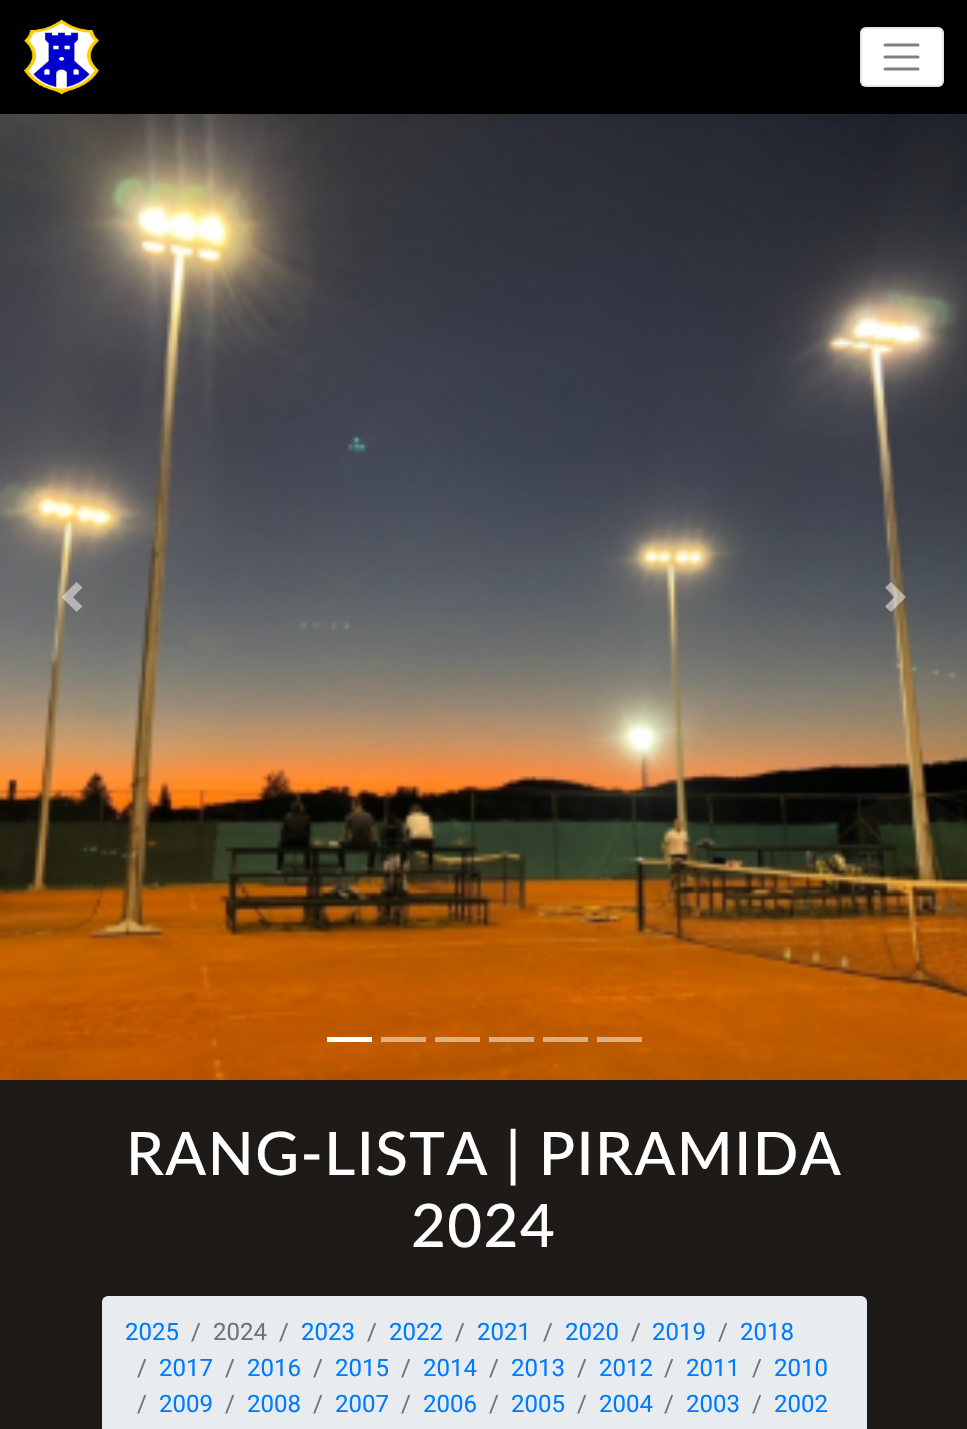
#include "include/core/SkBlurTypes.h"
#include "include/core/SkCanvas.h"
#include "include/core/SkData.h"
#include "include/core/SkFont.h"
#include "include/core/SkFontMgr.h"
#include "include/core/SkImage.h"
#include "include/core/SkMaskFilter.h"
#include "include/core/SkPaint.h"
#include "include/core/SkPathBuilder.h"
#include "include/core/SkTextBlob.h"
#include "include/effects/SkDashPathEffect.h"
#include "include/effects/SkGradientShader.h"
#include "include/utils/SkParsePath.h"

extern sk_sp<SkFontMgr> fontMgr;

static SkFont font(const char* family, int weight, float size, bool italic = false) {
    SkFontStyle style(weight, SkFontStyle::kNormal_Width,
        italic ? SkFontStyle::kItalic_Slant : SkFontStyle::kUpright_Slant);
    SkFont result(fontMgr->matchFamilyStyle(family, style), size);
    result.setSubpixel(true);
    return result;
}

static void drawLabel(SkCanvas* canvas, const char* s, float x, float y, const SkFont& font, SkColor color) {
    SkPaint ink(SkColor4f::FromColor(color));
    ink.setAntiAlias(true);
    canvas->drawString(s, x, y, font, ink);
}

static void drawTracked(SkCanvas* canvas, const char* s, float x, float y, const SkFont& font, const SkPaint& ink, float letter, float word) {
    std::vector<SkGlyphID> glyphs(font.countText(s, strlen(s), SkTextEncoding::kUTF8));
    std::vector<float> xs(glyphs.size());
    font.textToGlyphs(s, strlen(s), SkTextEncoding::kUTF8, glyphs);
    font.getXPos(glyphs, xs, x);
    float extra = 0;
    for (size_t i = 0; i < glyphs.size(); i++) {
        xs[i] += extra;
        extra += letter + word * (glyphs[i] == font.unicharToGlyph(' '));
    }
    canvas->drawTextBlob(SkTextBlob::MakeFromPosHGlyphs(glyphs, xs, y, font), 0, 0, ink);
}

static void fillRect(SkCanvas* canvas, float x, float y, float w, float h, SkColor color) {
    SkPaint ink(SkColor4f::FromColor(color));
    ink.setAntiAlias(true);
    canvas->drawRect(SkRect::MakeXYWH(x, y, w, h), ink);
}

static void fillRRect(SkCanvas* canvas, float x, float y, float w, float h, float radius, SkColor color) {
    SkPaint ink(SkColor4f::FromColor(color));
    ink.setAntiAlias(true);
    canvas->drawRoundRect(SkRect::MakeXYWH(x, y, w, h), radius, radius, ink);
}

static void drawPhoto(SkCanvas* canvas, const char* path, float x, float y, float w, float h) {
    auto image = SkImages::DeferredFromEncodedData(SkData::MakeFromFileName(path));
    canvas->drawImageRect(image, SkRect::MakeXYWH(x, y, w, h), SkSamplingOptions());
}

static SkPath parsePath(const char* data, bool evenOdd = false) {
    SkPath result = *SkParsePath::FromSVGString(data);
    if (evenOdd) result.setFillType(SkPathFillType::kEvenOdd);
    return result;
}

void draw(SkCanvas* canvas) {
    SkPaint paint;
    paint.setAntiAlias(true);
    canvas->clear(0xFF1D1A17);
    fillRect(canvas, 0, 0, 967, 114, 0xFF000000);
    drawPhoto(canvas, "assets/img1.png", 24, 19, 75, 76);
    fillRRect(canvas, 860, 27, 84, 60, 6, 0xFFFFFFFF);
    paint.setStroke(true);
    paint.setStrokeWidth(2);
    paint.setColor(0x1A000000);
    canvas->drawRoundRect(SkRect::MakeXYWH(861, 28, 82, 58), 5, 5, paint);
    paint.setStrokeWidth(3);
    paint.setStrokeCap(SkPaint::kRound_Cap);
    paint.setColor(0xFF808080);
    canvas->drawPath(parsePath("M885 45H918M885 57H918M885 69H918"), paint);
    drawPhoto(canvas, "assets/img2.png", 0, 114, 967, 966);
    paint.setStroke(false);
    paint.setColor(0x80FFFFFF);
    canvas->drawPath(parsePath("M76.5 582L61.5 597L76.5 612L82.5 606.5L73 597L82.5 587.5Z"), paint);
    canvas->drawPath(parsePath("M891 582L885 587.5L894.5 597L885 606.5L891 612L906 597Z"), paint);
    fillRect(canvas, 327, 1037, 45, 5, 0xFFFFFFFF);
    fillRect(canvas, 381, 1037, 45, 5, 0x80FFFFFF);
    fillRect(canvas, 435, 1037, 45, 5, 0x80FFFFFF);
    fillRect(canvas, 489, 1037, 45, 5, 0x80FFFFFF);
    fillRect(canvas, 543, 1037, 45, 5, 0x80FFFFFF);
    fillRect(canvas, 597, 1037, 45, 5, 0x80FFFFFF);
    SkFont font1 = font("Lato", 500, 60);
    paint.setColor(0xFFFFFFFF);
    drawTracked(canvas, "RANG-LISTA | PIRAMIDA", 126, 1175, font1, paint, 1.5f, 0);
    drawTracked(canvas, "2024", 411, 1247, font1, paint, 1.5f, 0);
    fillRRect(canvas, 102, 1296, 765, 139, 6, 0xFFE9ECEF);
    SkFont font2 = font("Roboto", 400, 24);
    drawLabel(canvas, "2025", 125, 1340, font2, 0xFF007BFF);
    drawLabel(canvas, "/", 191, 1340, font2, 0xFF6C757D);
    drawLabel(canvas, "2024", 213, 1340, font2, 0xFF6C757D);
    drawLabel(canvas, "/", 279, 1340, font2, 0xFF6C757D);
    drawLabel(canvas, "2023", 301, 1340, font2, 0xFF007BFF);
    drawLabel(canvas, "/", 367, 1340, font2, 0xFF6C757D);
    drawLabel(canvas, "2022", 389, 1340, font2, 0xFF007BFF);
    drawLabel(canvas, "/", 455, 1340, font2, 0xFF6C757D);
    drawLabel(canvas, "2021", 477, 1340, font2, 0xFF007BFF);
    drawLabel(canvas, "/", 543, 1340, font2, 0xFF6C757D);
    drawLabel(canvas, "2020", 565, 1340, font2, 0xFF007BFF);
    drawLabel(canvas, "/", 631, 1340, font2, 0xFF6C757D);
    drawLabel(canvas, "2019", 652, 1340, font2, 0xFF007BFF);
    drawLabel(canvas, "/", 718, 1340, font2, 0xFF6C757D);
    drawLabel(canvas, "2018", 740, 1340, font2, 0xFF007BFF);
    drawLabel(canvas, "/", 137, 1376, font2, 0xFF6C757D);
    drawLabel(canvas, "2017", 159, 1376, font2, 0xFF007BFF);
    drawLabel(canvas, "/", 225, 1376, font2, 0xFF6C757D);
    drawLabel(canvas, "2016", 247, 1376, font2, 0xFF007BFF);
    drawLabel(canvas, "/", 313, 1376, font2, 0xFF6C757D);
    drawLabel(canvas, "2015", 335, 1376, font2, 0xFF007BFF);
    drawLabel(canvas, "/", 401, 1376, font2, 0xFF6C757D);
    drawLabel(canvas, "2014", 423, 1376, font2, 0xFF007BFF);
    drawLabel(canvas, "/", 489, 1376, font2, 0xFF6C757D);
    drawLabel(canvas, "2013", 511, 1376, font2, 0xFF007BFF);
    drawLabel(canvas, "/", 577, 1376, font2, 0xFF6C757D);
    drawLabel(canvas, "2012", 599, 1376, font2, 0xFF007BFF);
    drawLabel(canvas, "/", 664, 1376, font2, 0xFF6C757D);
    drawLabel(canvas, "2011", 686, 1376, font2, 0xFF007BFF);
    drawLabel(canvas, "/", 752, 1376, font2, 0xFF6C757D);
    drawLabel(canvas, "2010", 774, 1376, font2, 0xFF007BFF);
    drawLabel(canvas, "/", 137, 1412, font2, 0xFF6C757D);
    drawLabel(canvas, "2009", 159, 1412, font2, 0xFF007BFF);
    drawLabel(canvas, "/", 225, 1412, font2, 0xFF6C757D);
    drawLabel(canvas, "2008", 247, 1412, font2, 0xFF007BFF);
    drawLabel(canvas, "/", 313, 1412, font2, 0xFF6C757D);
    drawLabel(canvas, "2007", 335, 1412, font2, 0xFF007BFF);
    drawLabel(canvas, "/", 401, 1412, font2, 0xFF6C757D);
    drawLabel(canvas, "2006", 423, 1412, font2, 0xFF007BFF);
    drawLabel(canvas, "/", 489, 1412, font2, 0xFF6C757D);
    drawLabel(canvas, "2005", 511, 1412, font2, 0xFF007BFF);
    drawLabel(canvas, "/", 577, 1412, font2, 0xFF6C757D);
    drawLabel(canvas, "2004", 599, 1412, font2, 0xFF007BFF);
    drawLabel(canvas, "/", 664, 1412, font2, 0xFF6C757D);
    drawLabel(canvas, "2003", 686, 1412, font2, 0xFF007BFF);
    drawLabel(canvas, "/", 752, 1412, font2, 0xFF6C757D);
    drawLabel(canvas, "2002", 774, 1412, font2, 0xFF007BFF);
}
